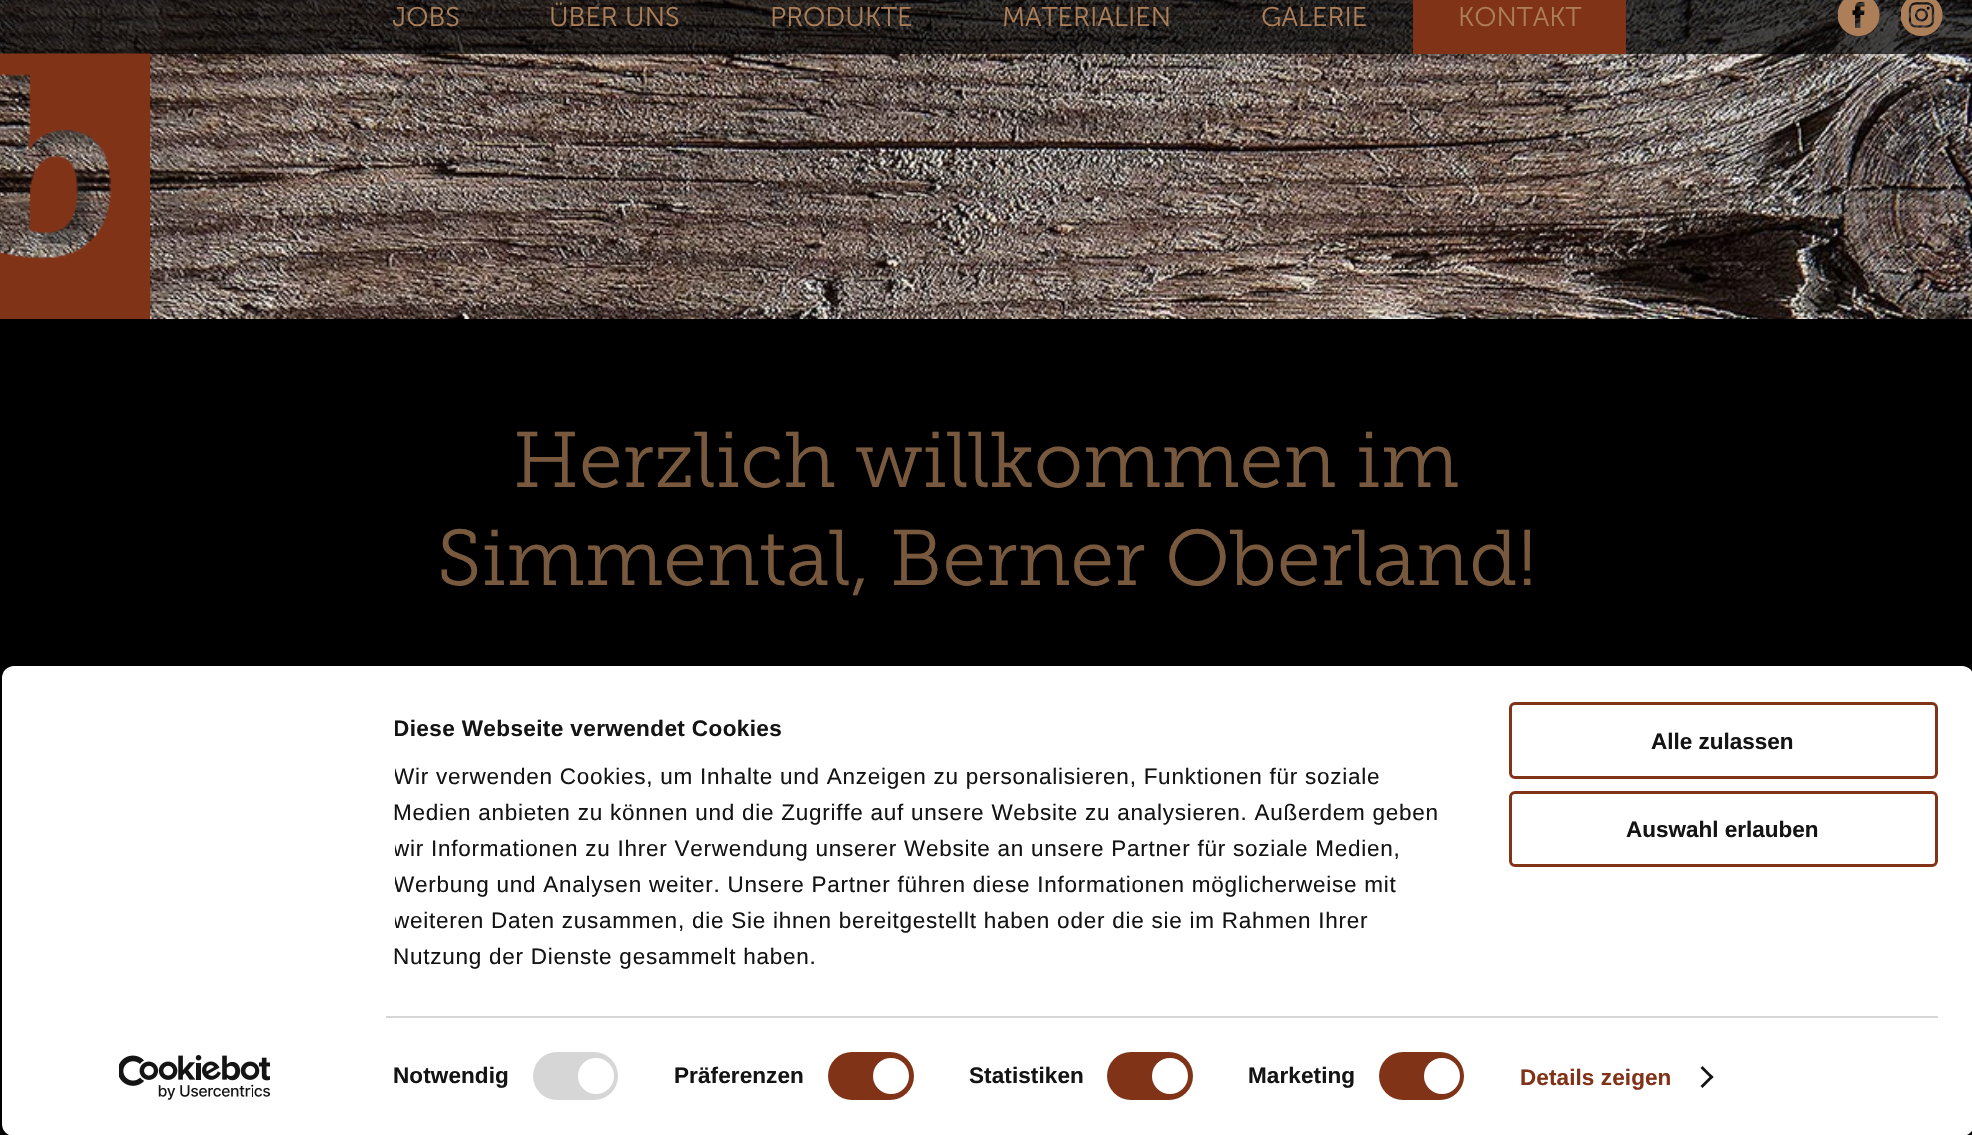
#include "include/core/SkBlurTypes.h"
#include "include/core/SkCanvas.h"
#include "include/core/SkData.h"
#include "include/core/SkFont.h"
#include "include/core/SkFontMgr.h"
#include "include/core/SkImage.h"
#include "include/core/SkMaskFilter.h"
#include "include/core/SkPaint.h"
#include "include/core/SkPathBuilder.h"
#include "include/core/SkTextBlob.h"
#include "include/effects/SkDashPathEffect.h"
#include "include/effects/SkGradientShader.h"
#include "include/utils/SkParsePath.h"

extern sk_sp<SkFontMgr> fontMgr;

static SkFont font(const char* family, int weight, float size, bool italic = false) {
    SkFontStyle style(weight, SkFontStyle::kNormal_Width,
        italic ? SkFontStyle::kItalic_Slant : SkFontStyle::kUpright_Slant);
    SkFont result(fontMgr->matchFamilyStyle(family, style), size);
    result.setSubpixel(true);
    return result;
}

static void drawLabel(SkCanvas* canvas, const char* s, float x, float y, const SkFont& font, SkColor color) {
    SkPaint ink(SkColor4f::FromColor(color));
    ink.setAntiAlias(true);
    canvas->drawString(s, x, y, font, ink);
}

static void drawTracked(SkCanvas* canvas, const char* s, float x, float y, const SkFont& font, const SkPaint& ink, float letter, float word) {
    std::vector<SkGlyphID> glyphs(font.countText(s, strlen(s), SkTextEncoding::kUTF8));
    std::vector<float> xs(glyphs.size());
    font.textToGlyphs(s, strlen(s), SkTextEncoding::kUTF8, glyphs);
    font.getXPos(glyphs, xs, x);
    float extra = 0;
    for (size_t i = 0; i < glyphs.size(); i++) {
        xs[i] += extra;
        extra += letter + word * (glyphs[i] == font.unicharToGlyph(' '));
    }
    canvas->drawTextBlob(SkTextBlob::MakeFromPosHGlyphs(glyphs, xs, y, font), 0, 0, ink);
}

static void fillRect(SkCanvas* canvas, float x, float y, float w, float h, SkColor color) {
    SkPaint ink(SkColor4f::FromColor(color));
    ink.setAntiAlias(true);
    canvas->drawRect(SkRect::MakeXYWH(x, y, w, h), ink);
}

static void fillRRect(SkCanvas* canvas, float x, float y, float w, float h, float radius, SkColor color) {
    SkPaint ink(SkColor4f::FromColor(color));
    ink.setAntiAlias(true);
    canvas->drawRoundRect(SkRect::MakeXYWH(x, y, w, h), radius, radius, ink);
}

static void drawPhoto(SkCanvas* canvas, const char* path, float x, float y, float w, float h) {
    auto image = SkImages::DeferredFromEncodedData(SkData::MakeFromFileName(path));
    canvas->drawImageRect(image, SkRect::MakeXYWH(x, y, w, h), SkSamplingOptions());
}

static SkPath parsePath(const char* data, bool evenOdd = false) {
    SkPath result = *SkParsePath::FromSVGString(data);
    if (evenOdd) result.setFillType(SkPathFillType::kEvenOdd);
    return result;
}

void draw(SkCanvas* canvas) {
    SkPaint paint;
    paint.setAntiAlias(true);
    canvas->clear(0xFF000000);
    drawPhoto(canvas, "assets/img1.png", 0, 0, 1972, 319);
    fillRect(canvas, 0, 0, 1972, 54, 0xB3000000);
    SkFont font1 = font("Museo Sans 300", 300, 27);
    drawLabel(canvas, "JOBS", 392, 26, font1, 0xFFAC7F59);
    drawLabel(canvas, "ÜBER UNS", 549, 26, font1, 0xFFAC7F59);
    drawLabel(canvas, "PRODUKTE", 770, 26, font1, 0xFFAC7F59);
    drawLabel(canvas, "MATERIALIEN", 1002, 26, font1, 0xFFAC7F59);
    drawLabel(canvas, "GALERIE", 1261, 26, font1, 0xFFAC7F59);
    fillRect(canvas, 1413, 0, 213, 54, 0xFF813318);
    drawLabel(canvas, "KONTAKT", 1458, 26, font1, 0xFFAC7F59);
    drawPhoto(canvas, "assets/img2.png", 1838, 0, 42, 36);
    drawPhoto(canvas, "assets/img3.png", 1901, 0, 42, 36);
    drawPhoto(canvas, "assets/img4.png", 0, 53, 150, 266);
    SkFont font2 = font("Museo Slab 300", 300, 78.75f);
    drawLabel(canvas, "Herzlich willkommen im", 513, 487, font2, 0xFF78593E);
    drawLabel(canvas, "Simmental, Berner Oberland!", 437, 585, font2, 0xFF78593E);
    fillRRect(canvas, 2, 666, 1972, 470, 12, 0xFFFFFFFF);
    canvas->save();
    canvas->clipRect(SkRect::MakeXYWH(395, 711, 1071, 263));
    SkFont font3 = font("Liberation Sans", 700, 22.5f);
    paint.setColor(0xFF141414);
    drawTracked(canvas, "Diese Webseite verwendet Cookies", 393, 736, font3, paint, 0.4f, 0);
    SkFont font4 = font("Liberation Sans", 400, 22.5f);
    drawTracked(canvas, "Wir verwenden Cookies, um Inhalte und Anzeigen zu personalisieren, Funktionen für soziale", 393, 784, font4, paint, 0.75f, 0);
    canvas->restore();
    drawTracked(canvas, "Medien anbieten zu können und die Zugriffe auf unsere Website zu analysieren. Außerdem geben", 393, 820, font4, paint, 0.75f, 0);
    canvas->save();
    canvas->clipRect(SkRect::MakeXYWH(395, 711, 1071, 263));
    drawTracked(canvas, "wir Informationen zu Ihrer Verwendung unserer Website an unsere Partner für soziale Medien,", 393, 856, font4, paint, 0.75f, 0);
    drawTracked(canvas, "Werbung und Analysen weiter. Unsere Partner führen diese Informationen möglicherweise mit", 393, 892, font4, paint, 0.75f, 0);
    drawTracked(canvas, "weiteren Daten zusammen, die Sie ihnen bereitgestellt haben oder die sie im Rahmen Ihrer", 393, 928, font4, paint, 0.75f, 0);
    canvas->restore();
    drawTracked(canvas, "Nutzung der Dienste gesammelt haben.", 393, 964, font4, paint, 0.75f, 0);
    fillRect(canvas, 386, 1016, 1552, 2, 0xFFD6D6D6);
    drawTracked(canvas, "Notwendig", 393, 1083, font3, paint, 0.1f, 0);
    fillRRect(canvas, 533, 1052, 85, 48, 24, 0xFFD6D6D6);
    paint.setColor(0xFFFFFFFF);
    canvas->drawCircle(596, 1076, 18, paint);
    paint.setColor(0xFF141414);
    drawTracked(canvas, "Präferenzen", 674, 1083, font3, paint, 0.1f, 0);
    fillRRect(canvas, 828, 1052, 86, 48, 24, 0xFF813318);
    paint.setColor(0xFFFFFFFF);
    canvas->drawCircle(891, 1076, 18, paint);
    paint.setColor(0xFF141414);
    drawTracked(canvas, "Statistiken", 969, 1083, font3, paint, 0.1f, 0);
    fillRRect(canvas, 1107, 1052, 86, 48, 24, 0xFF813318);
    paint.setColor(0xFFFFFFFF);
    canvas->drawCircle(1170, 1076, 18, paint);
    paint.setColor(0xFF141414);
    drawTracked(canvas, "Marketing", 1248, 1083, font3, paint, 0.1f, 0);
    fillRRect(canvas, 1379, 1052, 85, 48, 24, 0xFF813318);
    paint.setColor(0xFFFFFFFF);
    canvas->drawCircle(1442, 1076, 18, paint);
    paint.setColor(0xFF813318);
    drawTracked(canvas, "Details zeigen", 1520, 1085, font3, paint, 0.1f, 0);
    paint.setColor(0xFF141414);
    canvas->drawPath(parsePath("M1702.5 1066L1713.5 1077L1711.5 1079L1700.5 1068Z"), paint);
    canvas->drawPath(parsePath("M1711.5 1075L1713.5 1077L1702.5 1088L1700.5 1086Z"), paint);
    paint.setStroke(true);
    paint.setStrokeWidth(3);
    paint.setColor(0xFF813318);
    canvas->drawRoundRect(SkRect::MakeXYWH(1510.5f, 703.5f, 426, 74), 4.5f, 4.5f, paint);
    drawLabel(canvas, "Alle zulassen", 1651, 749, font3, 0xFF141414);
    canvas->drawRoundRect(SkRect::MakeXYWH(1510.5f, 792.5f, 426, 73), 4.5f, 4.5f, paint);
    drawLabel(canvas, "Auswahl erlauben", 1626, 837, font3, 0xFF141414);
    drawPhoto(canvas, "assets/img5.png", 119, 1055, 151, 45);
}
